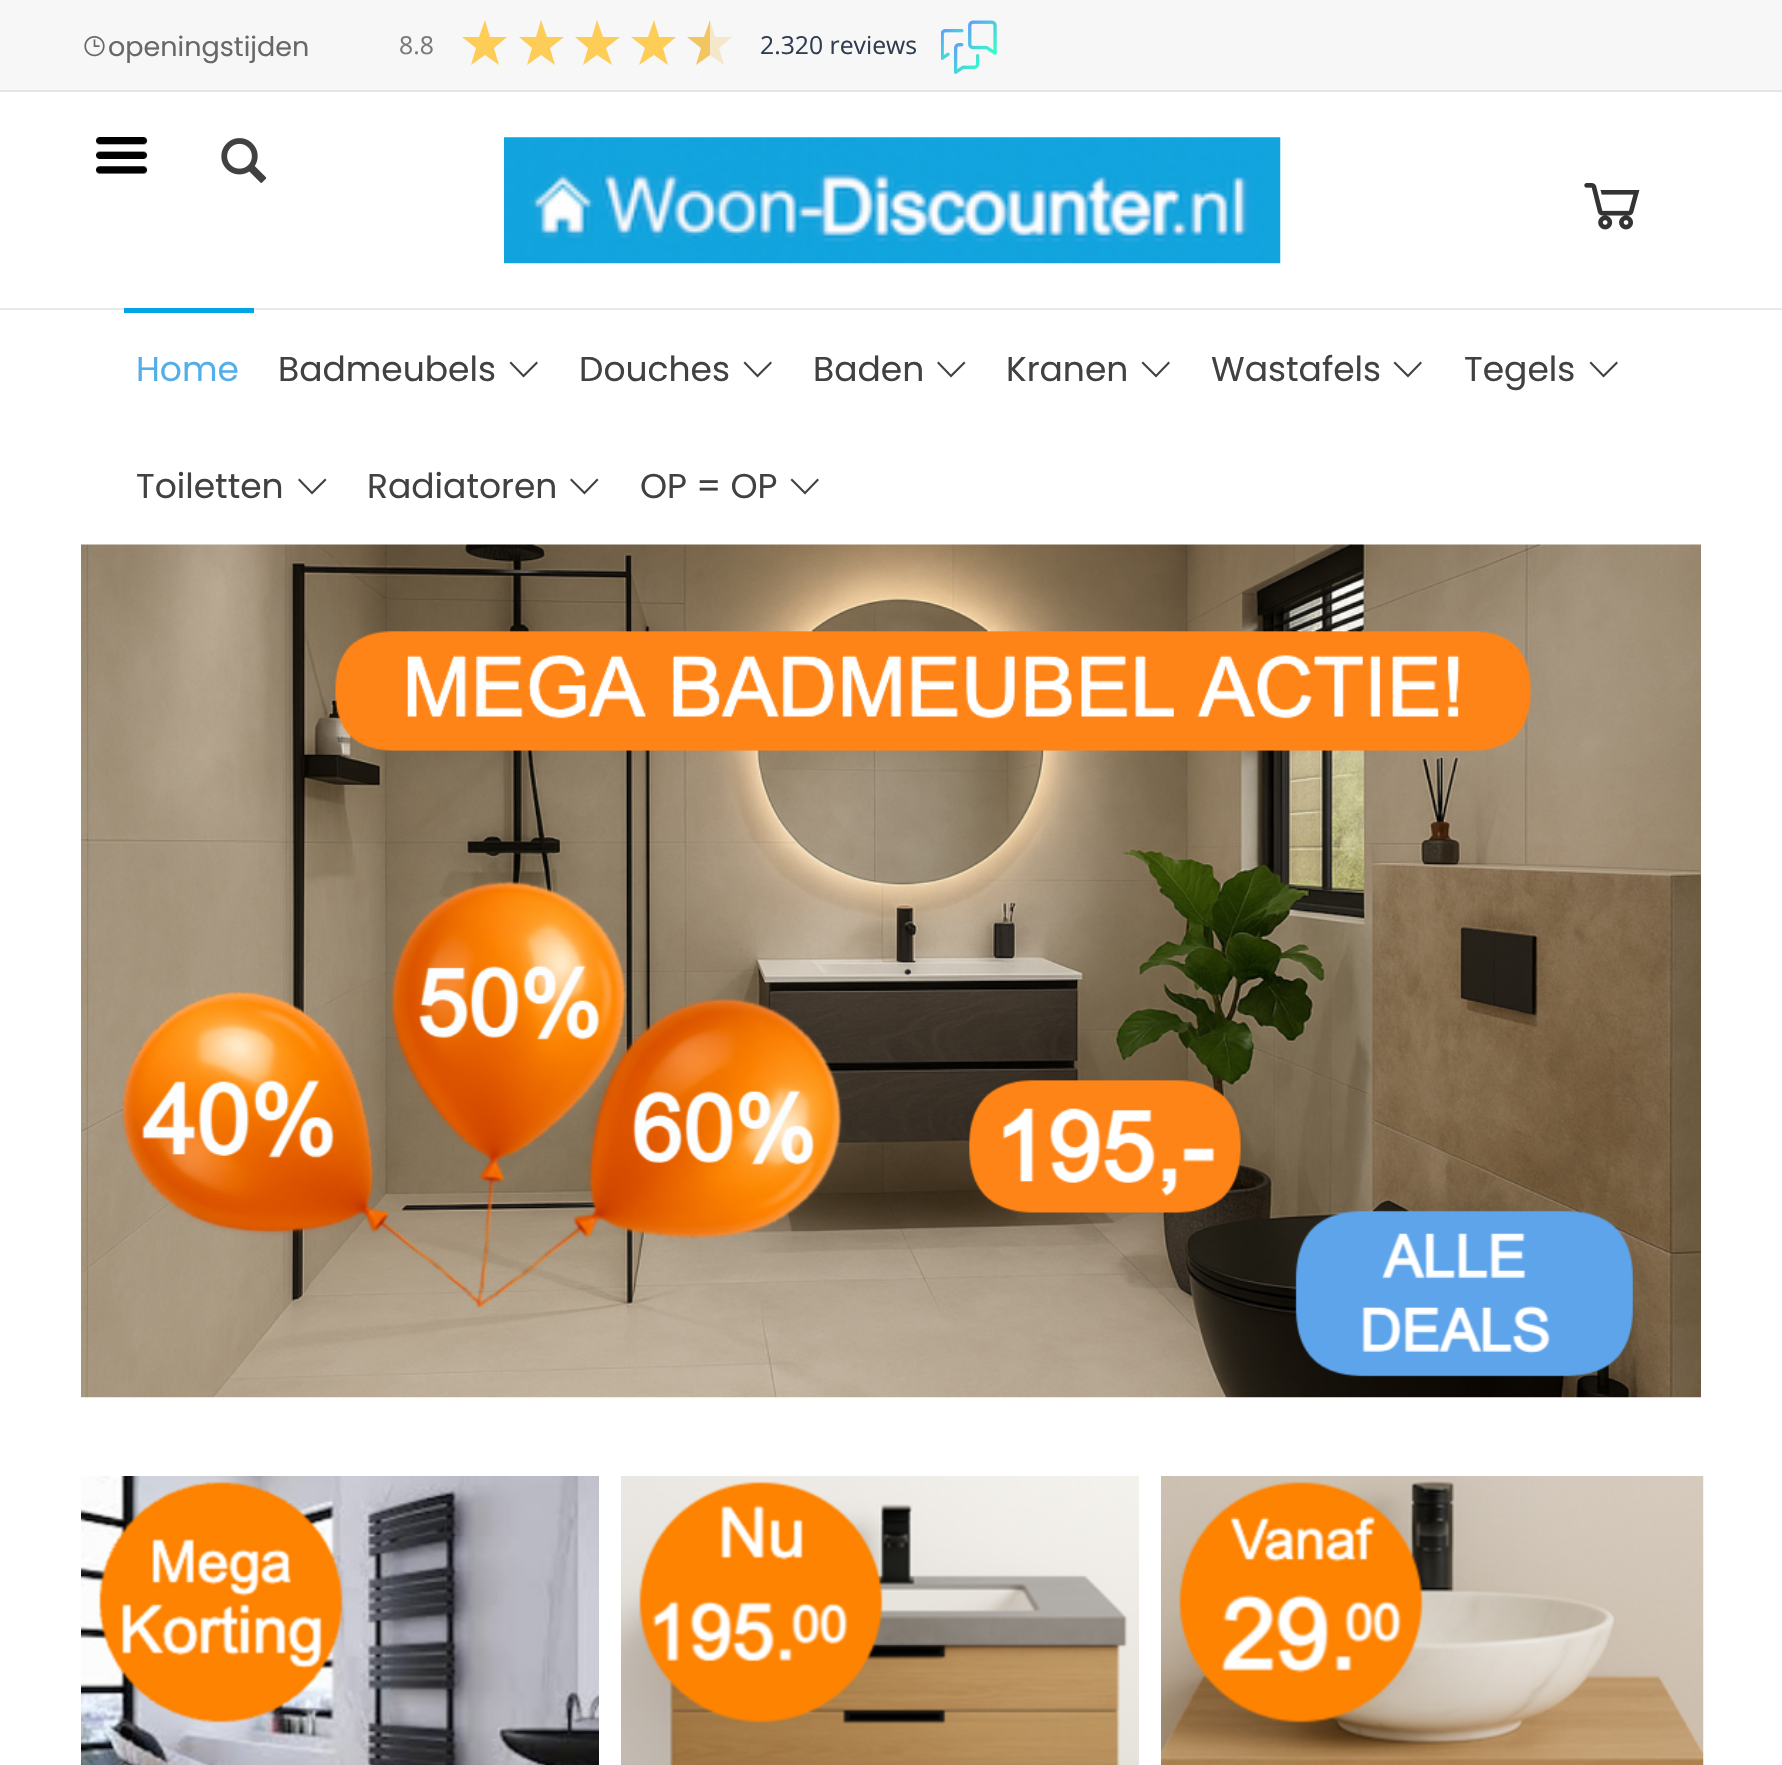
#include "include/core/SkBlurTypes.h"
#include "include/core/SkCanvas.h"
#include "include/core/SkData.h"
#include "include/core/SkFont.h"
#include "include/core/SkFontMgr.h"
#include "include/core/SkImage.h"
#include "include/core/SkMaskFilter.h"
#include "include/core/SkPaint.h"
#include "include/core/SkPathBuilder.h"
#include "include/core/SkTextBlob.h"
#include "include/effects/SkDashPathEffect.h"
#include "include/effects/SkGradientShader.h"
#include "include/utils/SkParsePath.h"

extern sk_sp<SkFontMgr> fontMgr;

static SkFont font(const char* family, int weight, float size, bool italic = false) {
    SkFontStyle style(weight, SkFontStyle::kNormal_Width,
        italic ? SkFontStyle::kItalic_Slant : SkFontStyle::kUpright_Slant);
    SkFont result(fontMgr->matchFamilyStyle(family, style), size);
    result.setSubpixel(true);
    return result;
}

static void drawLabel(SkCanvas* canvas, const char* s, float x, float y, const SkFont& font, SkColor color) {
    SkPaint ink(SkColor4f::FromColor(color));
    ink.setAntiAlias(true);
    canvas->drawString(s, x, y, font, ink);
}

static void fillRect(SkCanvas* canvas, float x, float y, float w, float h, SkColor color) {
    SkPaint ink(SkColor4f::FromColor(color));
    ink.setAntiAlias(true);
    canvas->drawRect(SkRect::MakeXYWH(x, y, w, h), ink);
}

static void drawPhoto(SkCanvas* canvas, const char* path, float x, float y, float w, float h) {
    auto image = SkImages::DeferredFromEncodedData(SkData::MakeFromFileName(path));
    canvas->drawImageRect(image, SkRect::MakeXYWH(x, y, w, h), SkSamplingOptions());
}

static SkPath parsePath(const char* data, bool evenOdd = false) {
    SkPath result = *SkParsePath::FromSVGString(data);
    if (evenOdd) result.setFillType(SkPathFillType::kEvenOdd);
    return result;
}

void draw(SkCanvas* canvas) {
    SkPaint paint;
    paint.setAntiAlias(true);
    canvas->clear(0xFFFFFFFF);
    fillRect(canvas, 0, 308, 1782, 2, 0xFFEAEAEA);
    fillRect(canvas, 0, 0, 1782, 90, 0xFFF7F7F7);
    fillRect(canvas, 0, 90, 1782, 2, 0xFFE5E5E5);
    drawPhoto(canvas, "assets/img1.png", 84, 36, 21, 21);
    SkFont font1 = font("Poppins", 400, 27);
    drawLabel(canvas, "openingstijden", 108, 56, font1, 0xFF686868);
    SkFont font2 = font("Open Sans", 400, 24.75f);
    drawLabel(canvas, "8.8", 399, 54, font2, 0xFF797979);
    paint.setColor(0xFFFECD58);
    canvas->drawPath(parsePath("M499 65L494 48L507 37H490L485 20L479 37H462L476 48L471 65L485 55Z"), paint);
    canvas->drawPath(parsePath("M555 65L550 48L564 37H547L541 20L536 37H519L532 48L527 65L541 55Z"), paint);
    canvas->drawPath(parsePath("M612 65L606 48L620 37H603L597 20L592 37H575L588 48L583 65L597 55Z"), paint);
    canvas->drawPath(parsePath("M668 65L663 48L676 37H659L654 20L648 37H631L645 48L639 65L654 55Z"), paint);
    paint.setColor(0xFFF1C661);
    canvas->drawPath(parsePath("M710 20L704 37H687L701 48L696 65L710 55Z"), paint);
    paint.setColor(0xFFF5E8CA);
    canvas->drawPath(parsePath("M710 20L715 37H732L719 48L724 65L710 55Z"), paint);
    drawLabel(canvas, "2.320 reviews", 760, 54, font2, 0xFF303C50);
    drawPhoto(canvas, "assets/img2.png", 941, 20, 56, 54);
    drawPhoto(canvas, "assets/img3.png", 96, 137, 52, 37);
    drawPhoto(canvas, "assets/img4.png", 221, 138, 46, 45);
    drawPhoto(canvas, "assets/img5.png", 504, 137, 777, 127);
    drawPhoto(canvas, "assets/img6.png", 1584, 183, 56, 47);
    fillRect(canvas, 124, 308, 130, 5, 0xFF00A4E8);
    SkFont font3 = font("Poppins", 400, 34.5f);
    drawLabel(canvas, "Home", 136, 381, font3, 0xFF54AFE9);
    drawLabel(canvas, "Badmeubels", 278, 381, font3, 0xFF414141);
    paint.setColor(0xFF414141);
    canvas->drawPath(parsePath("M511 361.5L509.5 363L523.5 377.5L538 363L536.5 361.5L523.5 374.5Z"), paint);
    drawLabel(canvas, "Douches", 579, 381, font3, 0xFF414141);
    canvas->drawPath(parsePath("M745 361.5L743.5 363L757.5 377.5L772 363L770.5 361.5L757.5 374.5Z"), paint);
    drawLabel(canvas, "Baden", 813, 381, font3, 0xFF414141);
    canvas->drawPath(parsePath("M938.5 361.5L937 363L951 377.5L965.5 363L964 361.5L951 374.5Z"), paint);
    drawLabel(canvas, "Kranen", 1006, 381, font3, 0xFF414141);
    canvas->drawPath(parsePath("M1143 361.5L1141.5 363L1156 377.5L1170 363L1168.5 361.5L1156 374.5Z"), paint);
    drawLabel(canvas, "Wastafels", 1211, 381, font3, 0xFF414141);
    canvas->drawPath(parsePath("M1395 361.5L1393.5 363L1408 377.5L1422 363L1420.5 361.5L1408 374.5Z"), paint);
    drawLabel(canvas, "Tegels", 1464, 381, font3, 0xFF414141);
    canvas->drawPath(parsePath("M1591 361.5L1589.5 363L1603.5 377.5L1618 363L1616.5 361.5L1603.5 374.5Z"), paint);
    drawLabel(canvas, "Toiletten", 136, 498, font3, 0xFF414141);
    canvas->drawPath(parsePath("M299.5 478.5L298 480L312 494.5L326.5 480L325 478.5L312 491.5Z"), paint);
    drawLabel(canvas, "Radiatoren", 367, 498, font3, 0xFF414141);
    canvas->drawPath(parsePath("M571.5 478.5L570 480L584.5 494.5L598.5 480L597 478.5L584.5 491.5Z"), paint);
    drawLabel(canvas, "OP = OP", 640, 498, font3, 0xFF414141);
    canvas->drawPath(parsePath("M792 478.5L790.5 480L805 494.5L819 480L817.5 478.5L805 491.5Z"), paint);
    drawPhoto(canvas, "assets/img7.png", 81, 544, 1620, 854);
    drawPhoto(canvas, "assets/img8.png", 81, 1476, 518, 289);
    drawPhoto(canvas, "assets/img9.png", 621, 1476, 518, 289);
    drawPhoto(canvas, "assets/img10.png", 1161, 1476, 543, 289);
}
